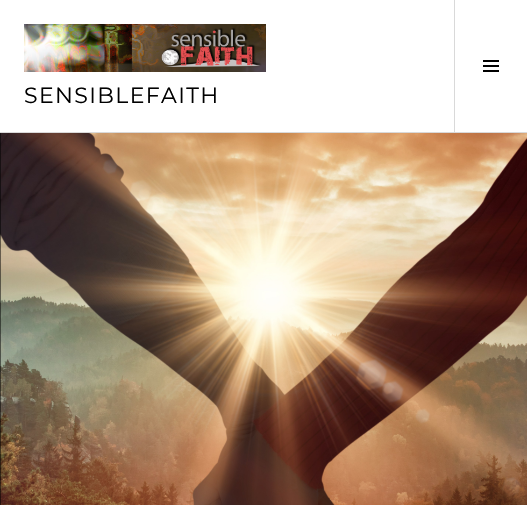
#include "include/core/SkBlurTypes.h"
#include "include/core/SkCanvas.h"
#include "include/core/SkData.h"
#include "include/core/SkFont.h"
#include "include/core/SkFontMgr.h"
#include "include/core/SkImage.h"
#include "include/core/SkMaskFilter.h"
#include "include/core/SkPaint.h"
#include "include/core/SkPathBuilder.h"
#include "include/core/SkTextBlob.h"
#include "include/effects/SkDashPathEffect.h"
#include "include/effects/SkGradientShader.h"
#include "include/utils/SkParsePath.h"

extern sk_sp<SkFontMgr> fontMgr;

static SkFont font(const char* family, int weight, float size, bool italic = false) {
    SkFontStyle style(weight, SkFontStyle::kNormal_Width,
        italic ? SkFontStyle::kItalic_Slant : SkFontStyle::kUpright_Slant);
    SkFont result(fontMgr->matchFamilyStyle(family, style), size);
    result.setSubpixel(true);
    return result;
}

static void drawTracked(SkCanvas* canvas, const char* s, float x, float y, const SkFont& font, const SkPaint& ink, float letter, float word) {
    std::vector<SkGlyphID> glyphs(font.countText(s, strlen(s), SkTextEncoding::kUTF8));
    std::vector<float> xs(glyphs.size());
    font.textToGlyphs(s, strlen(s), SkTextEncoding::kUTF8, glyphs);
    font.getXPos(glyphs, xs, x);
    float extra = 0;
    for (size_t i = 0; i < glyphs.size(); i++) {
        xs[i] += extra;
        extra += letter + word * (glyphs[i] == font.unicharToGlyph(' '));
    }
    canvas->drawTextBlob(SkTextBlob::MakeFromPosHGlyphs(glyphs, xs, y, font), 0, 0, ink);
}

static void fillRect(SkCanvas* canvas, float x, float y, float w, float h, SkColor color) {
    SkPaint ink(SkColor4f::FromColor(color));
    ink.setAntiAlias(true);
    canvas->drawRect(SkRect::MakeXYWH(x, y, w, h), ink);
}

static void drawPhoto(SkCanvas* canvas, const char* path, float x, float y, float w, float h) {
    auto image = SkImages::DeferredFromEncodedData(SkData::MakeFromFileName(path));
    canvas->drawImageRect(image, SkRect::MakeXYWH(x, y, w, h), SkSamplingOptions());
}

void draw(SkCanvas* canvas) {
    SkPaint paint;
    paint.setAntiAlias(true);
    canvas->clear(0xFFFFFFFF);
    fillRect(canvas, 0, 132, 527, 1, 0xFFD9D9D9);
    drawPhoto(canvas, "assets/img1.png", 24, 24, 242, 48);
    SkFont font1 = font("Montserrat", 400, 22);
    paint.setColor(0xFF000000);
    drawTracked(canvas, "SENSIBLEFAITH", 24, 103, font1, paint, 1.4f, 0);
    fillRect(canvas, 454, 0, 1, 132, 0xFFD9D9D9);
    drawPhoto(canvas, "assets/img2.png", 483, 60, 16, 12);
    fillRect(canvas, 0, 133, 1, 372, 0xFF000000);
    drawPhoto(canvas, "assets/img3.png", 0, 133, 527, 372);
}
